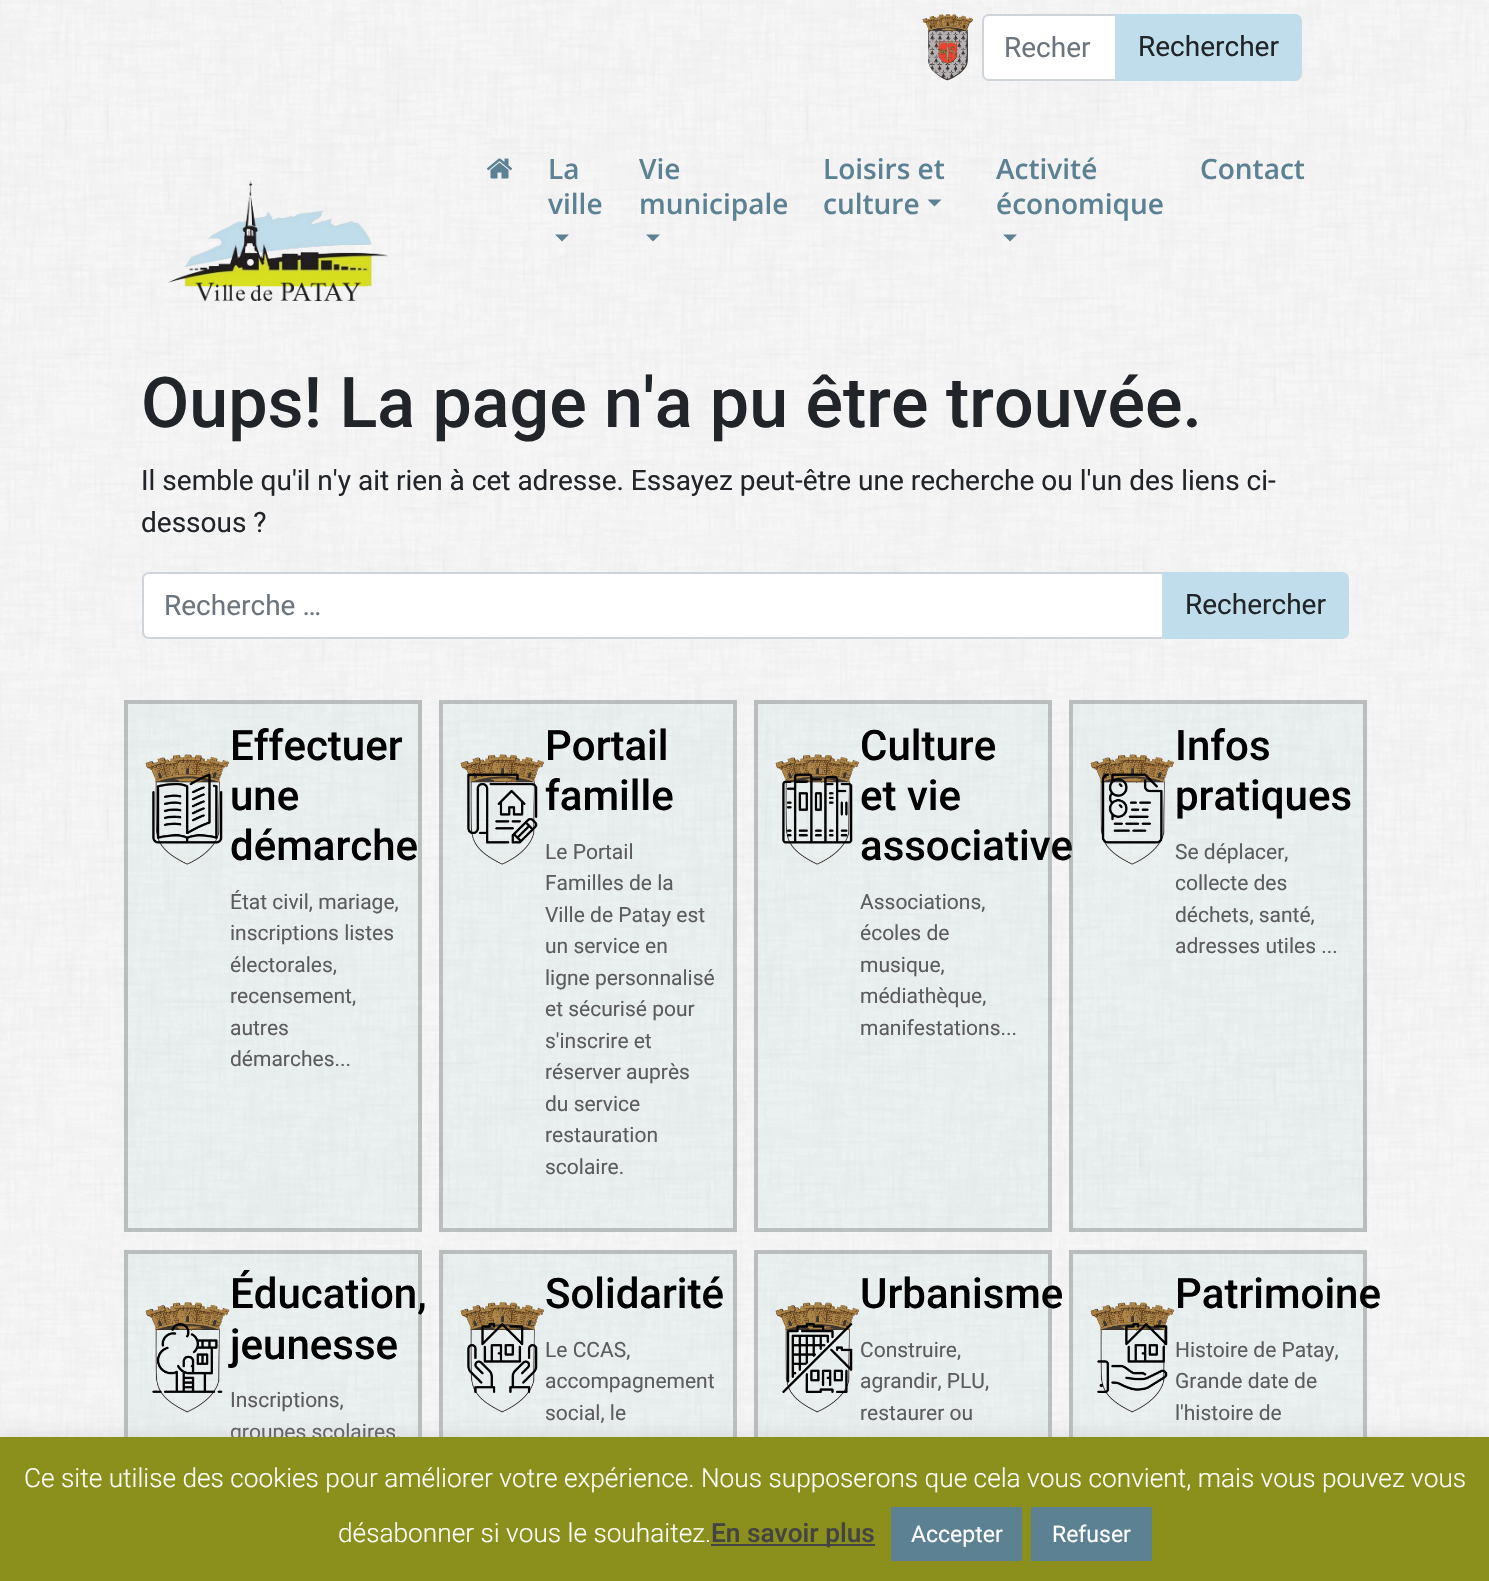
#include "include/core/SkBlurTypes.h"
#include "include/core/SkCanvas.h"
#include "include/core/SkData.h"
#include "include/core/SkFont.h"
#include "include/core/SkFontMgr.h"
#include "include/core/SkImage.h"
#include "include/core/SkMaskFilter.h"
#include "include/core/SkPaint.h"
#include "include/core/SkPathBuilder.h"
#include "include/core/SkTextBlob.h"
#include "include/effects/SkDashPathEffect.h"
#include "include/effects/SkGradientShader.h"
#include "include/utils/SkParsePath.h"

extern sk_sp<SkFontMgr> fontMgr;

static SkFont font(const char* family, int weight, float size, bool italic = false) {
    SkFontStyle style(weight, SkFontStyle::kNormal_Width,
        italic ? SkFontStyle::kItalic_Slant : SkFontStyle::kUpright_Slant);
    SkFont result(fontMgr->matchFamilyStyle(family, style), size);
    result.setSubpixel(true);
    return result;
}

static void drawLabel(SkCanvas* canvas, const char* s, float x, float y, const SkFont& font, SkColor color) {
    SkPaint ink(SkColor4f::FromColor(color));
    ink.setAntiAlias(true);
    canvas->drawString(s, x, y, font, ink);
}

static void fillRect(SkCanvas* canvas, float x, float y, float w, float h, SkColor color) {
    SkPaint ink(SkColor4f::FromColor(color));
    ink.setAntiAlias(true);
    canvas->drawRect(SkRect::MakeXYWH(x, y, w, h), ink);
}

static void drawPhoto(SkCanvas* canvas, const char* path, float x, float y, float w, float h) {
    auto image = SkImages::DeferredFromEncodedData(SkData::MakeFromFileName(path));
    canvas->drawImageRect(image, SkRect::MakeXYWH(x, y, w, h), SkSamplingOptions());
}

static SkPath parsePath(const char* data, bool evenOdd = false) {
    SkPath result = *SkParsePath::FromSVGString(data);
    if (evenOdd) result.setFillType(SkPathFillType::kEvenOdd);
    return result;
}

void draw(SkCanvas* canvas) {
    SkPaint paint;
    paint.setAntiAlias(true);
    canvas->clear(0xFFFFFFFF);
    drawPhoto(canvas, "assets/img1.png", 0, 0, 1489, 1437);
    drawPhoto(canvas, "assets/img2.png", 922, 14, 51, 67);
    paint.setColor(0xFFFFFFFF);
    canvas->drawPath(parsePath("M989 15H1116V80H989C985.5 80 983 77.5 983 74V21C983 17.5 985.5 15 989 15Z"), paint);
    paint.setStroke(true);
    paint.setStrokeWidth(2);
    paint.setColor(0xFFCED4DA);
    canvas->drawPath(parsePath("M989 15H1116V80H989C985.5 80 983 77.5 983 74V21C983 17.5 985.5 15 989 15Z"), paint);
    SkFont font1 = font("Roboto", 400, 28);
    drawLabel(canvas, "Recher", 1004, 57, font1, 0xFF6C757D);
    paint.setStroke(false);
    paint.setColor(0xFFC0DDEB);
    canvas->drawPath(parsePath("M1116 15H1295C1298.5 15 1301 17.5 1301 21V74C1301 77.5 1298.5 80 1295 80H1116Z"), paint);
    paint.setStroke(true);
    canvas->drawPath(parsePath("M1116 15H1295C1298.5 15 1301 17.5 1301 21V74C1301 77.5 1298.5 80 1295 80H1116Z"), paint);
    drawLabel(canvas, "Rechercher", 1138, 56, font1, 0xFF212529);
    drawPhoto(canvas, "assets/img3.png", 487, 158, 25, 21);
    SkFont font2 = font("Open Sans", 600, 28);
    drawLabel(canvas, "La", 548, 179, font2, 0xFF5B8193);
    drawLabel(canvas, "ville", 548, 214, font2, 0xFF5B8193);
    paint.setStroke(false);
    paint.setColor(0xFF5B8193);
    canvas->drawPath(parsePath("M555 234.5H569L562 241.5Z"), paint);
    drawLabel(canvas, "Vie", 639, 179, font2, 0xFF5B8193);
    drawLabel(canvas, "municipale", 639, 214, font2, 0xFF5B8193);
    canvas->drawPath(parsePath("M646 234.5H660L653 241.5Z"), paint);
    drawLabel(canvas, "Loisirs et", 823, 179, font2, 0xFF5B8193);
    drawLabel(canvas, "culture", 823, 214, font2, 0xFF5B8193);
    canvas->drawPath(parsePath("M927.5 199.5H941.5L934.5 206.5Z"), paint);
    drawLabel(canvas, "Activité", 996, 179, font2, 0xFF5B8193);
    drawLabel(canvas, "économique", 996, 214, font2, 0xFF5B8193);
    canvas->drawPath(parsePath("M1003 234.5H1017L1010 241.5Z"), paint);
    drawLabel(canvas, "Contact", 1200, 179, font2, 0xFF5B8193);
    drawPhoto(canvas, "assets/img4.png", 168, 180, 220, 121);
    SkFont font3 = font("Roboto", 500, 70);
    drawLabel(canvas, "Oups! La page n'a pu être trouvée.", 141, 427, font3, 0xFF212529);
    drawLabel(canvas, "Il semble qu'il n'y ait rien à cet adresse. Essayez peut-être une recherche ou l'un des liens ci-", 141, 490, font1, 0xFF212529);
    drawLabel(canvas, "dessous ?", 141, 532, font1, 0xFF212529);
    paint.setColor(0xFFFFFFFF);
    canvas->drawPath(parsePath("M149 573H1163V638H149C145.5 638 143 635.5 143 632V579C143 575.5 145.5 573 149 573Z"), paint);
    paint.setStroke(true);
    paint.setColor(0xFFCED4DA);
    canvas->drawPath(parsePath("M149 573H1163V638H149C145.5 638 143 635.5 143 632V579C143 575.5 145.5 573 149 573Z"), paint);
    drawLabel(canvas, "Recherche …", 164, 615, font1, 0xFF6C757D);
    paint.setStroke(false);
    paint.setColor(0xFFC0DDEB);
    canvas->drawPath(parsePath("M1163 573H1342C1345.5 573 1348 575.5 1348 579V632C1348 635.5 1345.5 638 1342 638H1163Z"), paint);
    paint.setStroke(true);
    canvas->drawPath(parsePath("M1163 573H1342C1345.5 573 1348 575.5 1348 579V632C1348 635.5 1345.5 638 1342 638H1163Z"), paint);
    drawLabel(canvas, "Rechercher", 1185, 614, font1, 0xFF212529);
    fillRect(canvas, 124, 700, 298, 532, 0x1A86B7C9);
    paint.setStrokeWidth(4);
    paint.setColor(0x33000000);
    canvas->drawRect(SkRect::MakeXYWH(126, 702, 294, 528), paint);
    drawPhoto(canvas, "assets/img5.png", 145, 754, 85, 111);
    drawPhoto(canvas, "assets/img6.png", 152, 773, 71, 71);
    SkFont font4 = font("Roboto", 500, 42);
    drawLabel(canvas, "Effectuer", 230, 760, font4, 0xFF000000);
    drawLabel(canvas, "une", 230, 810, font4, 0xFF000000);
    drawLabel(canvas, "démarche", 230, 860, font4, 0xFF000000);
    SkFont font5 = font("Roboto", 400, 21);
    drawLabel(canvas, "État civil, mariage,", 230, 909, font5, 0xFF5C5C5C);
    drawLabel(canvas, "inscriptions listes", 230, 940, font5, 0xFF5C5C5C);
    drawLabel(canvas, "électorales,", 230, 972, font5, 0xFF5C5C5C);
    drawLabel(canvas, "recensement,", 230, 1003, font5, 0xFF5C5C5C);
    drawLabel(canvas, "autres", 230, 1035, font5, 0xFF5C5C5C);
    drawLabel(canvas, "démarches...", 230, 1066, font5, 0xFF5C5C5C);
    fillRect(canvas, 439, 700, 298, 532, 0x1A86B7C9);
    canvas->drawRect(SkRect::MakeXYWH(441, 702, 294, 528), paint);
    drawPhoto(canvas, "assets/img7.png", 460, 754, 85, 111);
    drawPhoto(canvas, "assets/img8.png", 467, 773, 71, 71);
    drawLabel(canvas, "Portail", 545, 760, font4, 0xFF000000);
    drawLabel(canvas, "famille", 545, 810, font4, 0xFF000000);
    drawLabel(canvas, "Le Portail", 545, 859, font5, 0xFF5C5C5C);
    drawLabel(canvas, "Familles de la", 545, 890, font5, 0xFF5C5C5C);
    drawLabel(canvas, "Ville de Patay est", 545, 922, font5, 0xFF5C5C5C);
    drawLabel(canvas, "un service en", 545, 953, font5, 0xFF5C5C5C);
    drawLabel(canvas, "ligne personnalisé", 545, 985, font5, 0xFF5C5C5C);
    drawLabel(canvas, "et sécurisé pour", 545, 1016, font5, 0xFF5C5C5C);
    drawLabel(canvas, "s'inscrire et", 545, 1048, font5, 0xFF5C5C5C);
    drawLabel(canvas, "réserver auprès", 545, 1079, font5, 0xFF5C5C5C);
    drawLabel(canvas, "du service", 545, 1111, font5, 0xFF5C5C5C);
    drawLabel(canvas, "restauration", 545, 1142, font5, 0xFF5C5C5C);
    drawLabel(canvas, "scolaire.", 545, 1174, font5, 0xFF5C5C5C);
    fillRect(canvas, 754, 700, 298, 532, 0x1A86B7C9);
    canvas->drawRect(SkRect::MakeXYWH(756, 702, 294, 528), paint);
    drawPhoto(canvas, "assets/img9.png", 775, 754, 85, 111);
    drawPhoto(canvas, "assets/img10.png", 782, 773, 71, 71);
    drawLabel(canvas, "Culture", 860, 760, font4, 0xFF000000);
    drawLabel(canvas, "et vie", 860, 810, font4, 0xFF000000);
    drawLabel(canvas, "associative", 860, 860, font4, 0xFF000000);
    drawLabel(canvas, "Associations,", 860, 909, font5, 0xFF5C5C5C);
    drawLabel(canvas, "écoles de", 860, 940, font5, 0xFF5C5C5C);
    drawLabel(canvas, "musique,", 860, 972, font5, 0xFF5C5C5C);
    drawLabel(canvas, "médiathèque,", 860, 1003, font5, 0xFF5C5C5C);
    drawLabel(canvas, "manifestations...", 860, 1035, font5, 0xFF5C5C5C);
    fillRect(canvas, 1069, 700, 298, 532, 0x1A86B7C9);
    canvas->drawRect(SkRect::MakeXYWH(1071, 702, 294, 528), paint);
    drawPhoto(canvas, "assets/img11.png", 1090, 754, 85, 111);
    drawPhoto(canvas, "assets/img12.png", 1101, 773, 62, 71);
    drawLabel(canvas, "Infos", 1175, 760, font4, 0xFF000000);
    drawLabel(canvas, "pratiques", 1175, 810, font4, 0xFF000000);
    drawLabel(canvas, "Se déplacer,", 1175, 859, font5, 0xFF5C5C5C);
    drawLabel(canvas, "collecte des", 1175, 890, font5, 0xFF5C5C5C);
    drawLabel(canvas, "déchets, santé,", 1175, 922, font5, 0xFF5C5C5C);
    drawLabel(canvas, "adresses utiles ...", 1175, 953, font5, 0xFF5C5C5C);
    fillRect(canvas, 124, 1250, 298, 187, 0x1A86B7C9);
    canvas->drawRect(SkRect::MakeXYWH(126, 1252, 294, 305), paint);
    drawPhoto(canvas, "assets/img13.png", 145, 1302, 85, 111);
    drawPhoto(canvas, "assets/img14.png", 152, 1323, 71, 70);
    drawLabel(canvas, "Éducation,", 230, 1308, font4, 0xFF000000);
    drawLabel(canvas, "jeunesse", 230, 1359, font4, 0xFF000000);
    drawLabel(canvas, "Inscriptions,", 230, 1407, font5, 0xFF5C5C5C);
    drawLabel(canvas, "groupes scolaires,", 230, 1439, font5, 0xFF5C5C5C);
    fillRect(canvas, 439, 1250, 298, 187, 0x1A86B7C9);
    canvas->drawRect(SkRect::MakeXYWH(441, 1252, 294, 305), paint);
    drawPhoto(canvas, "assets/img15.png", 460, 1302, 85, 111);
    drawPhoto(canvas, "assets/img16.png", 467, 1323, 71, 70);
    drawLabel(canvas, "Solidarité", 545, 1308, font4, 0xFF000000);
    drawLabel(canvas, "Le CCAS,", 545, 1357, font5, 0xFF5C5C5C);
    drawLabel(canvas, "accompagnement", 545, 1388, font5, 0xFF5C5C5C);
    drawLabel(canvas, "social, le", 545, 1420, font5, 0xFF5C5C5C);
    fillRect(canvas, 754, 1250, 298, 187, 0x1A86B7C9);
    canvas->drawRect(SkRect::MakeXYWH(756, 1252, 294, 305), paint);
    drawPhoto(canvas, "assets/img17.png", 775, 1302, 85, 111);
    drawPhoto(canvas, "assets/img18.png", 782, 1323, 71, 70);
    drawLabel(canvas, "Urbanisme", 860, 1308, font4, 0xFF000000);
    drawLabel(canvas, "Construire,", 860, 1357, font5, 0xFF5C5C5C);
    drawLabel(canvas, "agrandir, PLU,", 860, 1388, font5, 0xFF5C5C5C);
    drawLabel(canvas, "restaurer ou", 860, 1420, font5, 0xFF5C5C5C);
    fillRect(canvas, 1069, 1250, 298, 187, 0x1A86B7C9);
    canvas->drawRect(SkRect::MakeXYWH(1071, 1252, 294, 305), paint);
    drawPhoto(canvas, "assets/img19.png", 1090, 1302, 85, 111);
    drawPhoto(canvas, "assets/img20.png", 1097, 1323, 71, 70);
    drawLabel(canvas, "Patrimoine", 1175, 1308, font4, 0xFF000000);
    drawLabel(canvas, "Histoire de Patay,", 1175, 1357, font5, 0xFF5C5C5C);
    drawLabel(canvas, "Grande date de", 1175, 1388, font5, 0xFF5C5C5C);
    drawLabel(canvas, "l'histoire de", 1175, 1420, font5, 0xFF5C5C5C);
    paint.setStroke(false);
    paint.setColor(0x4DACABAB);
    paint.setMaskFilter(SkMaskFilter::MakeBlur(kNormal_SkBlurStyle, 9));
    canvas->drawRect(SkRect::MakeXYWH(0, 1435, 1489, 145), paint);
    paint.setMaskFilter(nullptr);
    fillRect(canvas, 0, 1437, 1489, 144, 0xFF8A901B);
    SkFont font6 = font("Roboto", 300, 26.25f);
    drawLabel(canvas, "Ce site utilise des cookies pour améliorer votre expérience. Nous supposerons que cela vous convient, mais vous pouvez vous", 24, 1487, font6, 0xFFFFFFFF);
    drawLabel(canvas, "désabonner si vous le souhaitez.", 338, 1542, font6, 0xFFFFFFFF);
    fillRect(canvas, 711, 1544, 164, 2, 0xFF444444);
    SkFont font7 = font("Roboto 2", 500, 26.25f);
    drawLabel(canvas, "En savoir plus", 711, 1542, font7, 0xFF444444);
    fillRect(canvas, 891, 1507, 131, 54, 0xFF5B8193);
    SkFont font8 = font("Roboto", 400, 23);
    drawLabel(canvas, "Accepter", 911, 1542, font8, 0xFFFFFFFF);
    fillRect(canvas, 1031, 1507, 121, 54, 0xFF5B8193);
    drawLabel(canvas, "Refuser", 1052, 1542, font8, 0xFFFFFFFF);
}
